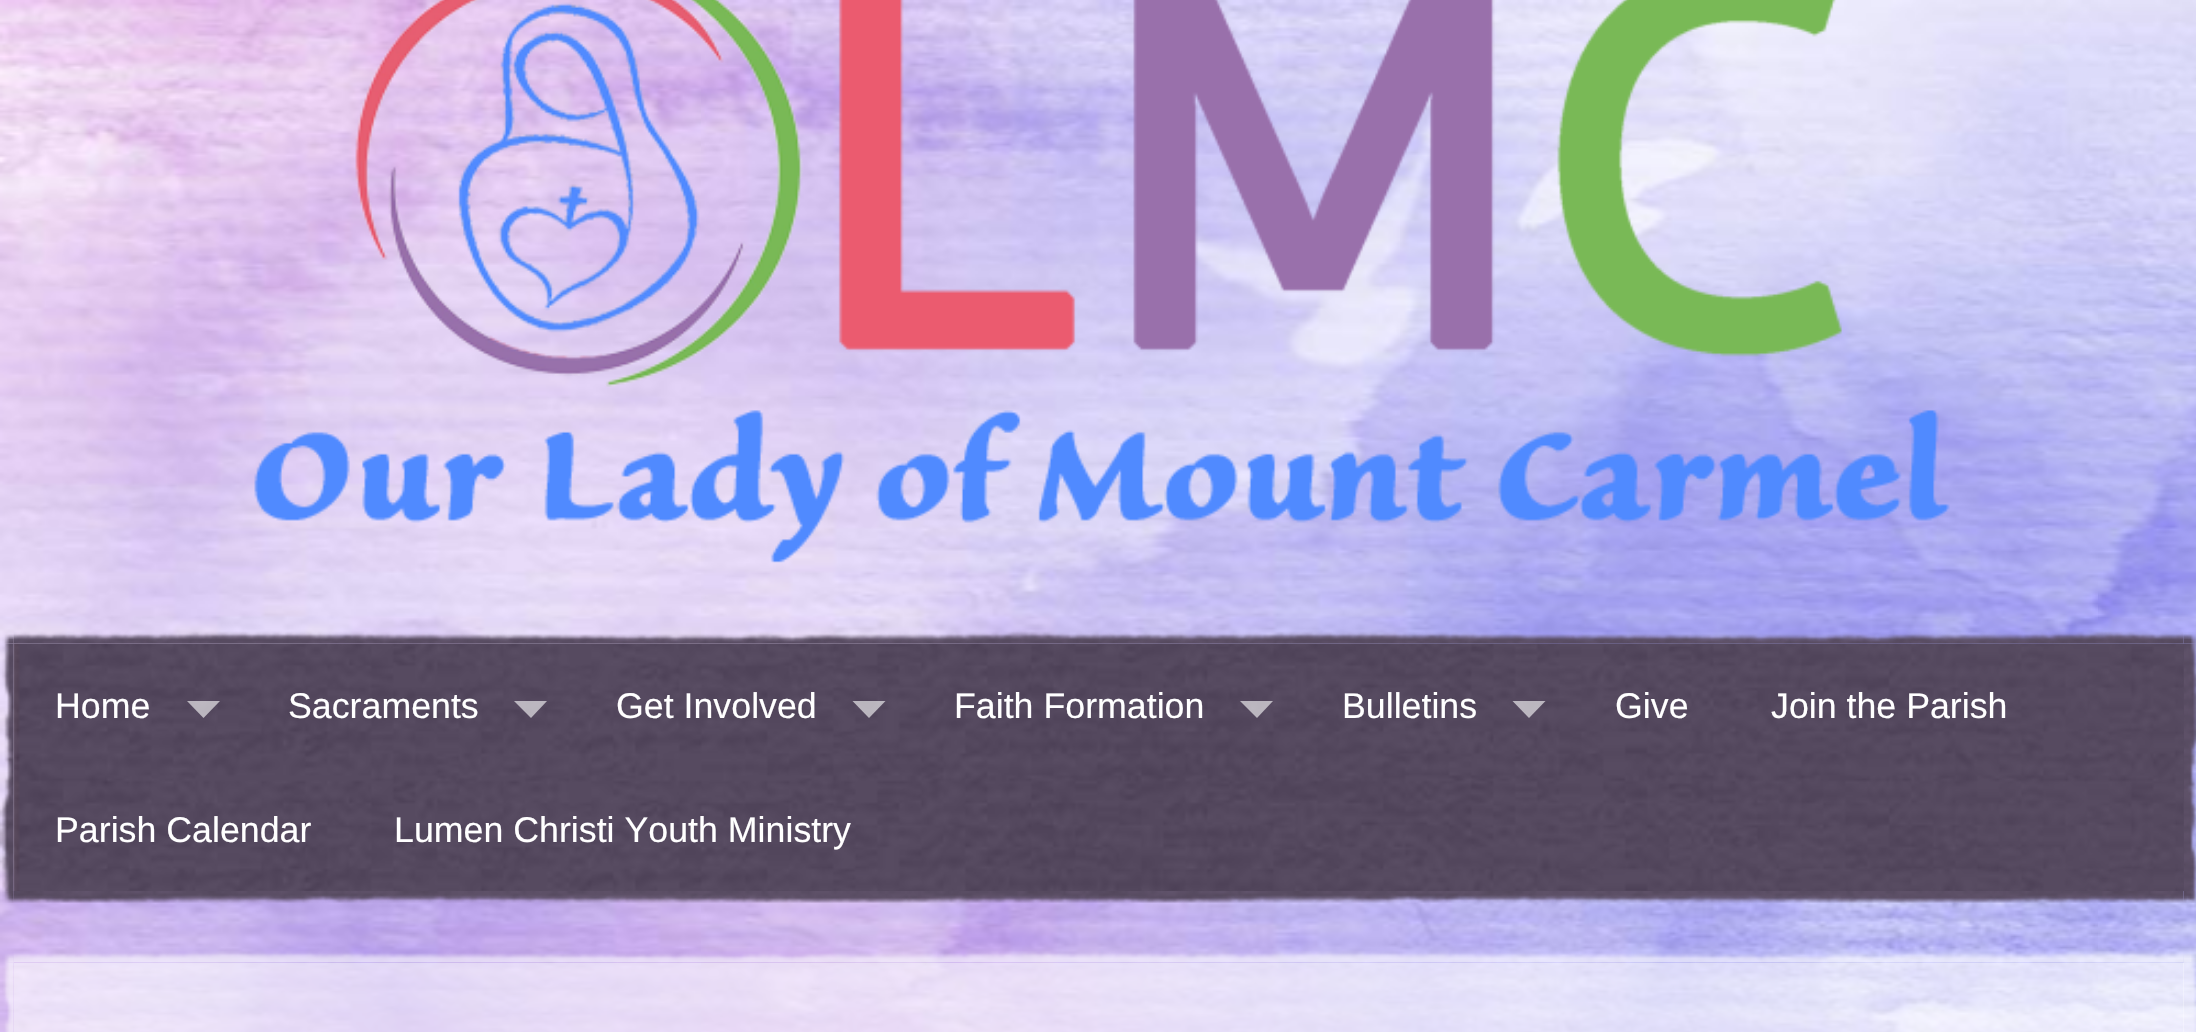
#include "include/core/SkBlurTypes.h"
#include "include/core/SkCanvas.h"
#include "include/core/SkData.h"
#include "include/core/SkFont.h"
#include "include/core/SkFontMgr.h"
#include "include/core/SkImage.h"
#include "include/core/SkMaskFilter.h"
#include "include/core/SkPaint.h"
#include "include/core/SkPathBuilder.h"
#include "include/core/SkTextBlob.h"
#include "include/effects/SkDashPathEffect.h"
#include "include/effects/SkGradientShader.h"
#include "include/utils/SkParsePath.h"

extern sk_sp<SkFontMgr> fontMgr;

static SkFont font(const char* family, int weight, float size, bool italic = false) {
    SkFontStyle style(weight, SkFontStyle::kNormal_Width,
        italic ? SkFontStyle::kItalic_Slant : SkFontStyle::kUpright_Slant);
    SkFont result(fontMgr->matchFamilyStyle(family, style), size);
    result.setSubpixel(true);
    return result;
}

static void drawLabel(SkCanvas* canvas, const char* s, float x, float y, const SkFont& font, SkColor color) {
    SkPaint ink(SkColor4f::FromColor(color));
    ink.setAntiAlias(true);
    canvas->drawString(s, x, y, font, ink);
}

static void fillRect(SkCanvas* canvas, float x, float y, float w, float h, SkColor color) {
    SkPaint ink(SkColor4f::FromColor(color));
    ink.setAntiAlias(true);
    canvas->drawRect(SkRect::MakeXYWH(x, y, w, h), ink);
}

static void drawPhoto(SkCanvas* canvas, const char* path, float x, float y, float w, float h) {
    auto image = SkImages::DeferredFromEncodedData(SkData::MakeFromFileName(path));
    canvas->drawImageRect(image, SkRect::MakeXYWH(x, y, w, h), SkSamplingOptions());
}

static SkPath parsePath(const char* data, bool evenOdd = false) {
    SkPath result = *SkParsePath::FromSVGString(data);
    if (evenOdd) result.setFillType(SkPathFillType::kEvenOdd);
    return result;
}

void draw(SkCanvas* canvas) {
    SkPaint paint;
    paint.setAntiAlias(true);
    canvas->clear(0xFFFFFFFF);
    drawPhoto(canvas, "assets/img1.png", 0, 0, 2196, 1032);
    drawPhoto(canvas, "assets/img2.png", 254, 0, 1696, 563);
    drawPhoto(canvas, "assets/img3.png", 0, 631, 2196, 272);
    fillRect(canvas, 2183, 644, 1, 247, 0xFF55495F);
    drawPhoto(canvas, "assets/img4.png", 13, 643, 2171, 248);
    SkFont font1 = font("Liberation Sans", 400, 35.75f);
    drawLabel(canvas, "Home", 55, 718, font1, 0xFFFFFFFF);
    paint.setColor(0x99FFFFFF);
    canvas->drawPath(parsePath("M187 701H220L203.5 718Z"), paint);
    drawLabel(canvas, "Sacraments", 288, 718, font1, 0xFFFFFFFF);
    canvas->drawPath(parsePath("M514 701H547L531 718Z"), paint);
    drawLabel(canvas, "Get Involved", 616, 718, font1, 0xFFFFFFFF);
    canvas->drawPath(parsePath("M852.5 701H885.5L869 718Z"), paint);
    drawLabel(canvas, "Faith Formation", 954, 718, font1, 0xFFFFFFFF);
    canvas->drawPath(parsePath("M1240 701H1273L1257 718Z"), paint);
    drawLabel(canvas, "Bulletins", 1342, 718, font1, 0xFFFFFFFF);
    canvas->drawPath(parsePath("M1512.5 701H1545.5L1529 718Z"), paint);
    drawLabel(canvas, "Give", 1615, 718, font1, 0xFFFFFFFF);
    drawLabel(canvas, "Join the Parish", 1771, 718, font1, 0xFFFFFFFF);
    drawLabel(canvas, "Parish Calendar", 55, 842, font1, 0xFFFFFFFF);
    drawLabel(canvas, "Lumen Christi Youth Ministry", 394, 842, font1, 0xFFFFFFFF);
    drawPhoto(canvas, "assets/img5.png", 3, 951, 2193, 81);
    fillRect(canvas, 14, 963, 2170, 69, 0x99FFFFFF);
}
